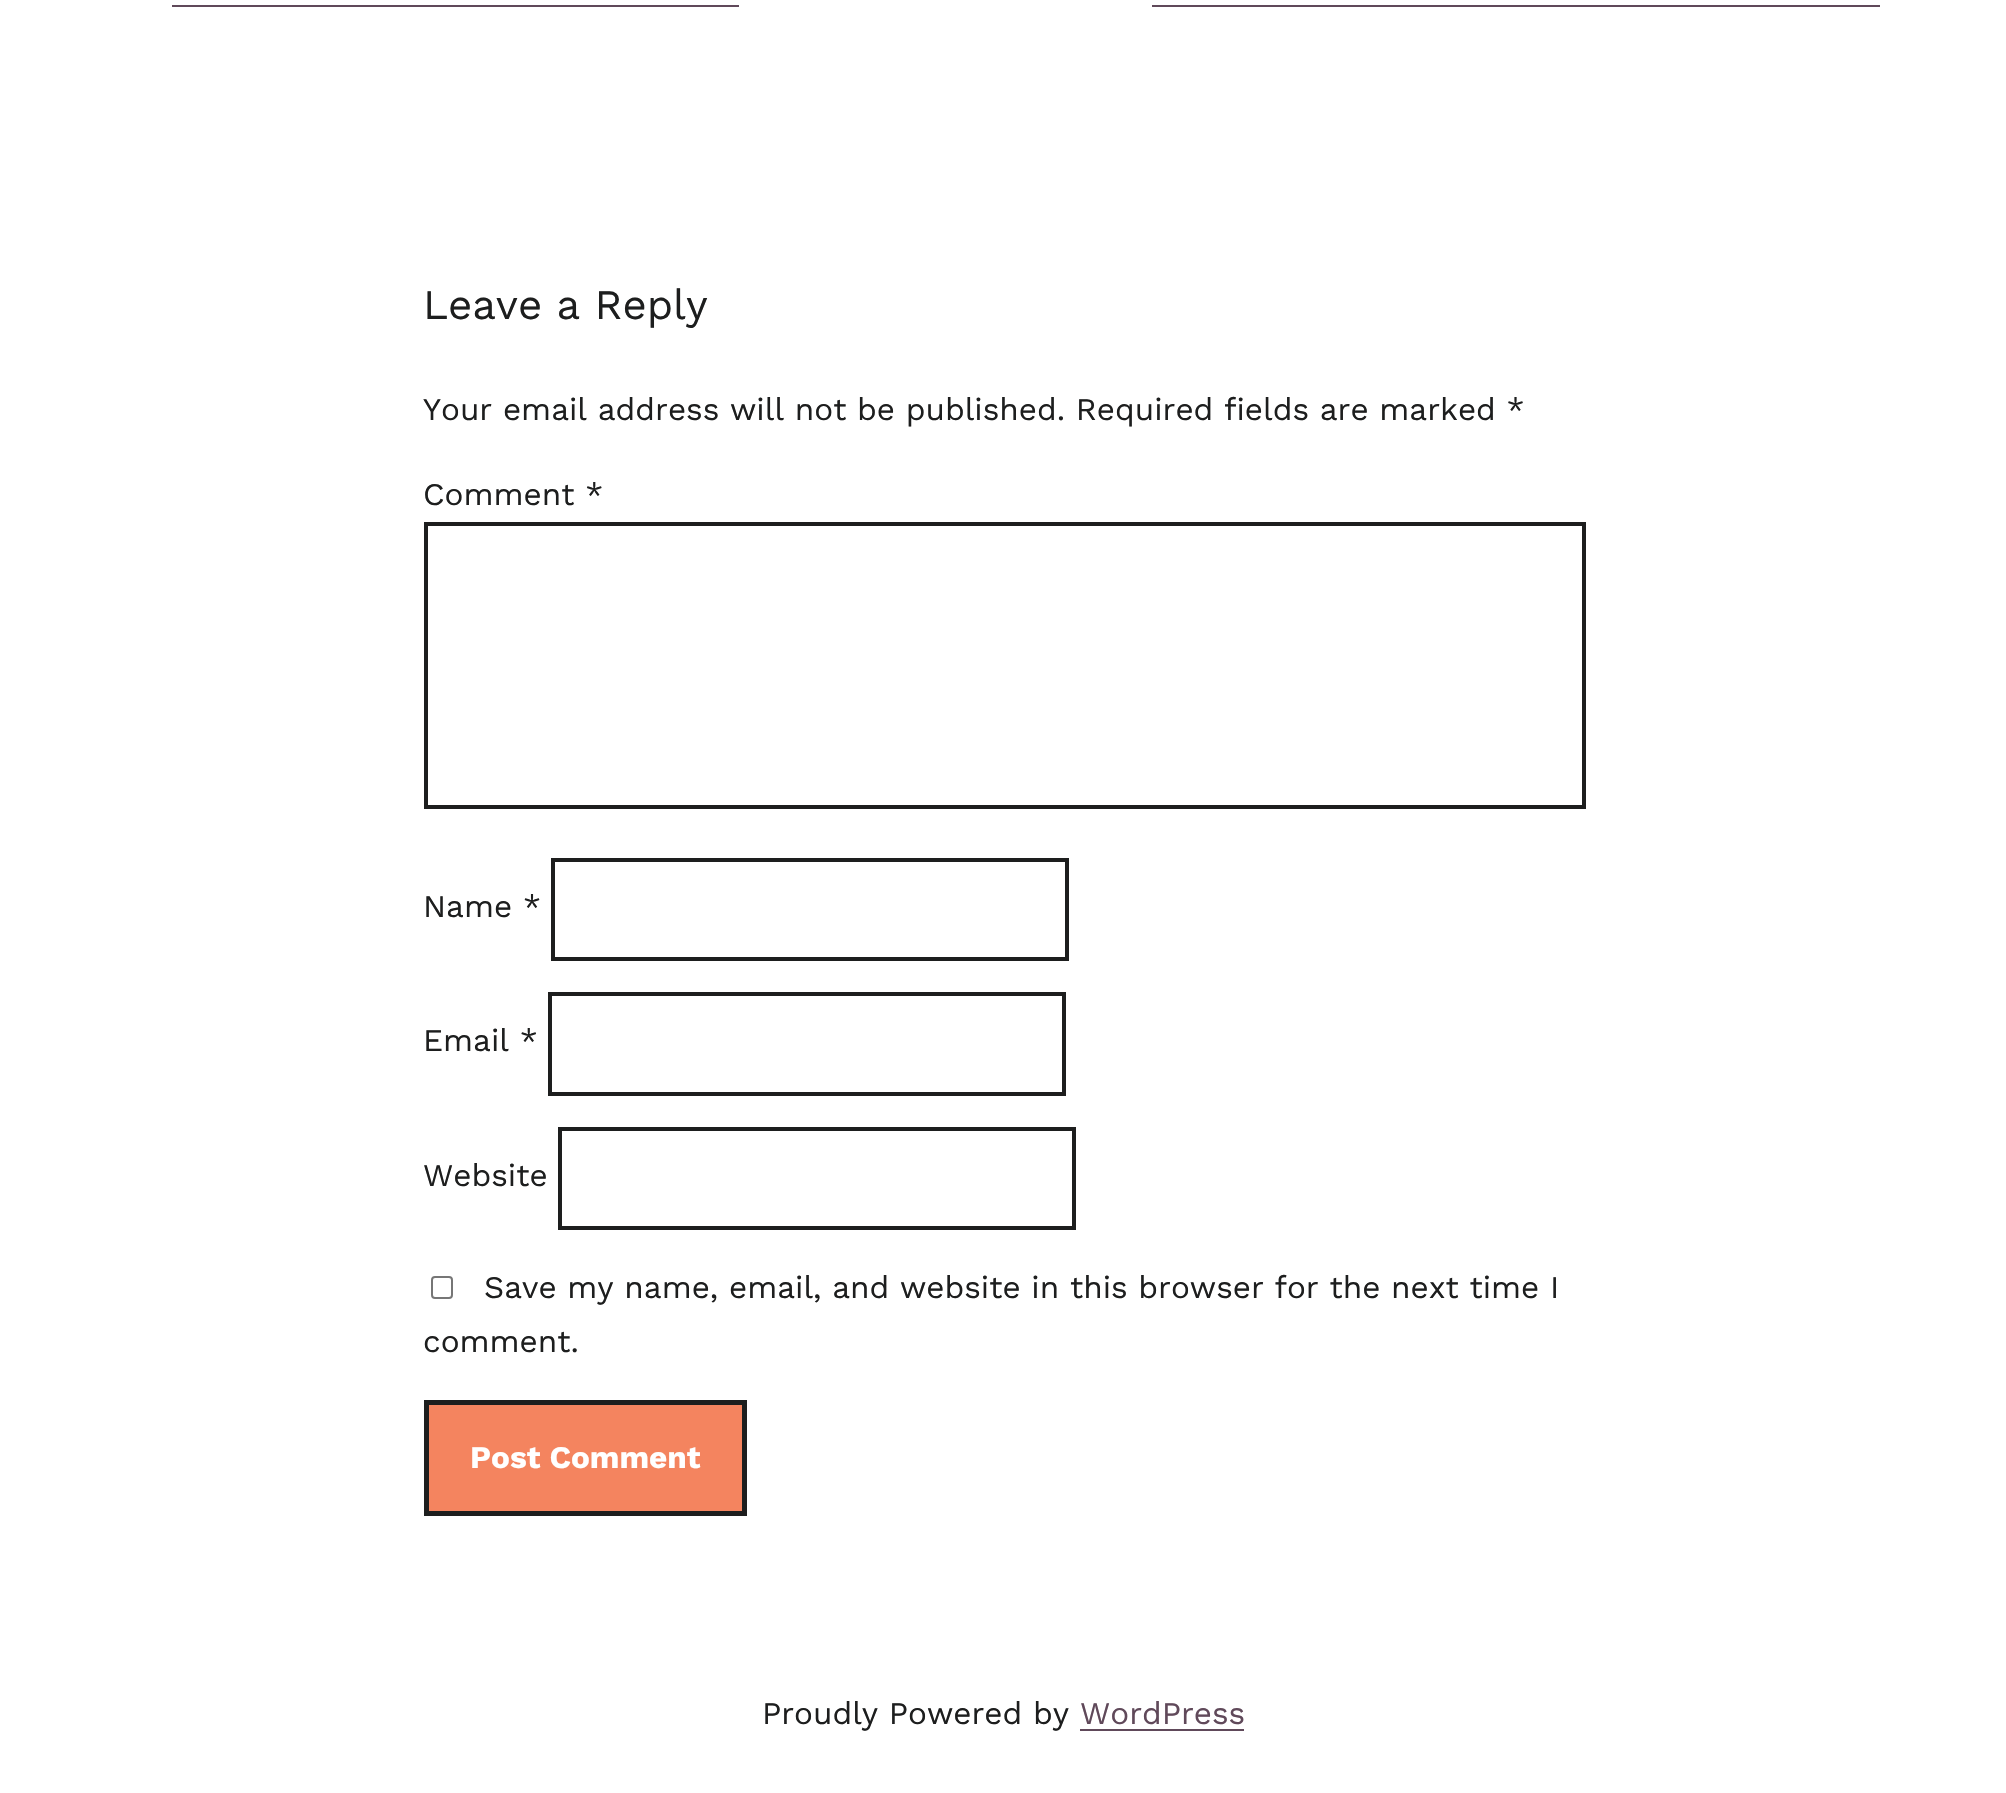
#include "include/core/SkBlurTypes.h"
#include "include/core/SkCanvas.h"
#include "include/core/SkData.h"
#include "include/core/SkFont.h"
#include "include/core/SkFontMgr.h"
#include "include/core/SkImage.h"
#include "include/core/SkMaskFilter.h"
#include "include/core/SkPaint.h"
#include "include/core/SkPathBuilder.h"
#include "include/core/SkTextBlob.h"
#include "include/effects/SkDashPathEffect.h"
#include "include/effects/SkGradientShader.h"
#include "include/utils/SkParsePath.h"

extern sk_sp<SkFontMgr> fontMgr;

static SkFont font(const char* family, int weight, float size, bool italic = false) {
    SkFontStyle style(weight, SkFontStyle::kNormal_Width,
        italic ? SkFontStyle::kItalic_Slant : SkFontStyle::kUpright_Slant);
    SkFont result(fontMgr->matchFamilyStyle(family, style), size);
    result.setSubpixel(true);
    return result;
}

static void drawLabel(SkCanvas* canvas, const char* s, float x, float y, const SkFont& font, SkColor color) {
    SkPaint ink(SkColor4f::FromColor(color));
    ink.setAntiAlias(true);
    canvas->drawString(s, x, y, font, ink);
}

static void fillRect(SkCanvas* canvas, float x, float y, float w, float h, SkColor color) {
    SkPaint ink(SkColor4f::FromColor(color));
    ink.setAntiAlias(true);
    canvas->drawRect(SkRect::MakeXYWH(x, y, w, h), ink);
}

void draw(SkCanvas* canvas) {
    SkPaint paint;
    paint.setAntiAlias(true);
    canvas->clear(0xFFFFFFFF);
    fillRect(canvas, 172, 5, 567, 2, 0xFF60495A);
    fillRect(canvas, 1152, 5, 728, 2, 0xFF60495A);
    SkFont font1 = font("Work Sans", 400, 42);
    drawLabel(canvas, "Leave a Reply", 423, 319, font1, 0xFF1D1E1E);
    SkFont font2 = font("Work Sans", 400, 31.5f);
    drawLabel(canvas, "Your email address will not be published. Required fields are marked *", 423, 420, font2, 0xFF1D1E1E);
    drawLabel(canvas, "Comment *", 423, 505, font2, 0xFF1D1E1E);
    paint.setStroke(true);
    paint.setStrokeWidth(4);
    paint.setColor(0xFF1D1E1E);
    canvas->drawRect(SkRect::MakeXYWH(426, 524, 1158, 283), paint);
    drawLabel(canvas, "Name *", 423, 917, font2, 0xFF1D1E1E);
    canvas->drawRect(SkRect::MakeXYWH(553, 860, 514, 99), paint);
    drawLabel(canvas, "Email *", 423, 1051, font2, 0xFF1D1E1E);
    canvas->drawRect(SkRect::MakeXYWH(550, 994, 514, 100), paint);
    drawLabel(canvas, "Website", 423, 1186, font2, 0xFF1D1E1E);
    canvas->drawRect(SkRect::MakeXYWH(560, 1129, 514, 99), paint);
    paint.setStrokeWidth(2);
    paint.setColor(0xFF767676);
    canvas->drawRoundRect(SkRect::MakeXYWH(432, 1277, 20, 21), 3, 3, paint);
    drawLabel(canvas, "Save my name, email, and website in this browser for the next time I", 484, 1298, font2, 0xFF1D1E1E);
    drawLabel(canvas, "comment.", 423, 1352, font2, 0xFF1D1E1E);
    paint.setStroke(false);
    paint.setColor(0xFFF4845F);
    canvas->drawRect(SkRect::MakeXYWH(426.5f, 1402.5f, 318, 111), paint);
    paint.setStroke(true);
    paint.setStrokeWidth(5);
    paint.setColor(0xFF1D1E1E);
    canvas->drawRect(SkRect::MakeXYWH(426.5f, 1402.5f, 318, 111), paint);
    SkFont font3 = font("Work Sans", 700, 31.5f);
    drawLabel(canvas, "Post Comment", 470, 1468, font3, 0xFFFFFFFF);
    drawLabel(canvas, "Proudly Powered by", 762, 1724, font2, 0xFF1D1E1E);
    drawLabel(canvas, "WordPress", 1080, 1724, font2, 0xFF60495A);
    fillRect(canvas, 1080, 1729, 164, 2, 0xFF60495A);
}
